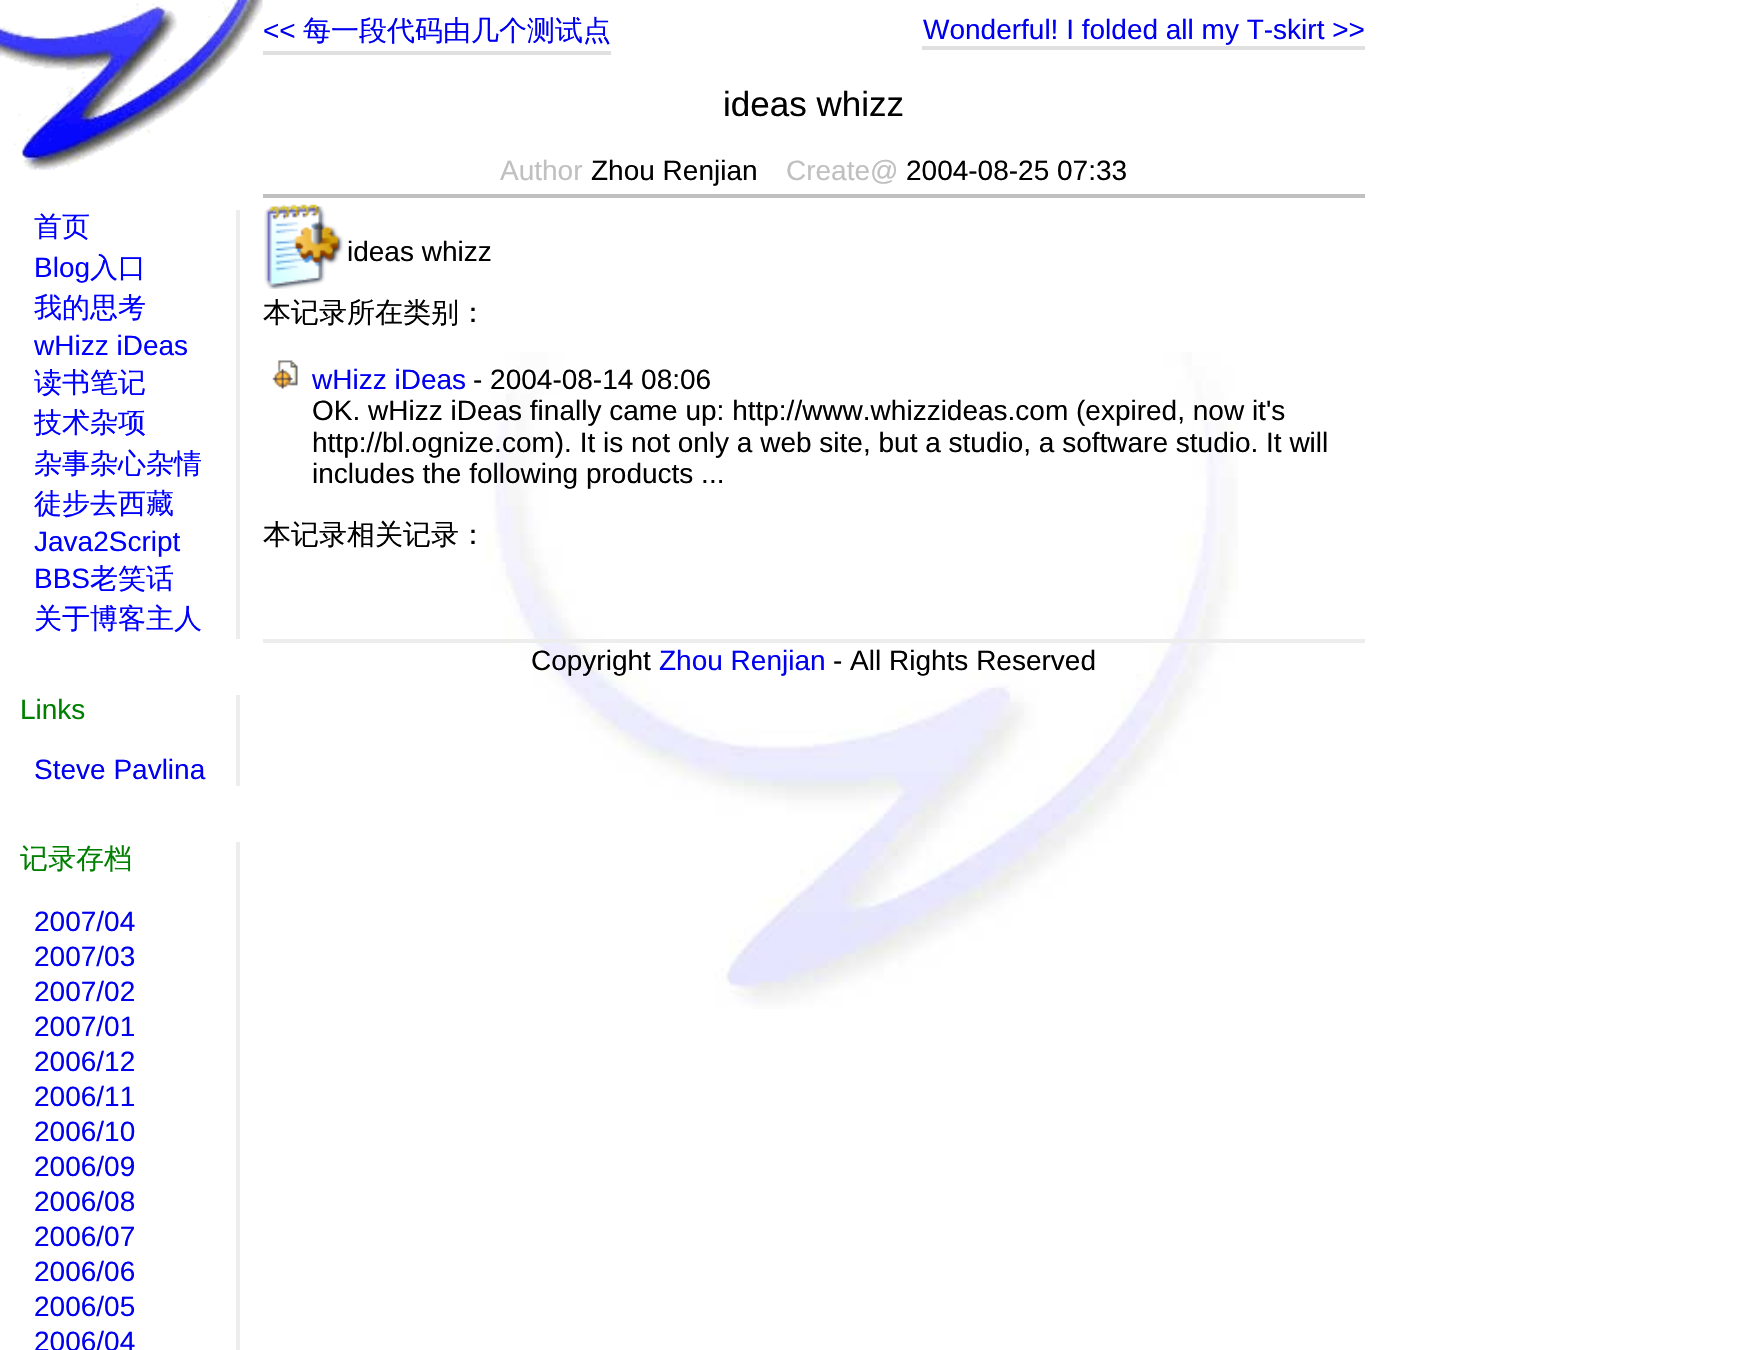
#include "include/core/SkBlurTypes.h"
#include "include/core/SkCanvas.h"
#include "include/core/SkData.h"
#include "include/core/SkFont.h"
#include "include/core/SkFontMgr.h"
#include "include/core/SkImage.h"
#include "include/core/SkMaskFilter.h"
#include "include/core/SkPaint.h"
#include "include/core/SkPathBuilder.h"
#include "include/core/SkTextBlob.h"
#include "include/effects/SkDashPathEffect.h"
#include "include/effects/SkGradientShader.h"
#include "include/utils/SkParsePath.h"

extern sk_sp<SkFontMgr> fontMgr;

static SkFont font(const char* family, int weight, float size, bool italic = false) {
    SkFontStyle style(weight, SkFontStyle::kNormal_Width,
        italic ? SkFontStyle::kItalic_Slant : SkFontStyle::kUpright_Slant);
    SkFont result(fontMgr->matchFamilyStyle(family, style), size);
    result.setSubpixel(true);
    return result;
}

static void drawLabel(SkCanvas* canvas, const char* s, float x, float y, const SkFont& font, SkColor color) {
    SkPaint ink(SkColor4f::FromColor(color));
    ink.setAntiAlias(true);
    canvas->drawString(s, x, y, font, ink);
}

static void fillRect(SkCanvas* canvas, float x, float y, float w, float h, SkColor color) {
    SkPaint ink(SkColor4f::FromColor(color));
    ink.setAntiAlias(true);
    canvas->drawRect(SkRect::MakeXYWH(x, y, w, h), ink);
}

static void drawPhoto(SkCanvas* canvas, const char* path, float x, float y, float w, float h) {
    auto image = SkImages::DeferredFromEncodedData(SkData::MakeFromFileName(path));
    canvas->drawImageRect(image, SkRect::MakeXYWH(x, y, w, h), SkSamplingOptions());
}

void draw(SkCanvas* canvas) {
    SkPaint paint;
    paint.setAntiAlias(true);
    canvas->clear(0xFFFFFFFF);
    drawPhoto(canvas, "assets/img1.png", 486, 352, 752, 657);
    drawPhoto(canvas, "assets/img2.png", 0, 0, 263, 171);
    fillRect(canvas, 236, 210, 4, 429, 0xFFEDEDED);
    SkFont font1 = font("WenQuanYi Zen Hei", 500, 28);
    drawLabel(canvas, "首页", 34, 236, font1, 0xFF0000FF);
    SkFont font2 = font("Liberation Sans", 400, 28);
    drawLabel(canvas, "Blog", 34, 277, font2, 0xFF0000FF);
    drawLabel(canvas, "入口", 90, 277, font1, 0xFF0000FF);
    drawLabel(canvas, "我的思考", 34, 317, font1, 0xFF0000FF);
    drawLabel(canvas, "wHizz iDeas", 34, 355, font2, 0xFF0000FF);
    drawLabel(canvas, "读书笔记", 34, 392, font1, 0xFF0000FF);
    drawLabel(canvas, "技术杂项", 34, 432, font1, 0xFF0000FF);
    drawLabel(canvas, "杂事杂心杂情", 34, 473, font1, 0xFF0000FF);
    drawLabel(canvas, "徒步去西藏", 34, 513, font1, 0xFF0000FF);
    drawLabel(canvas, "Java2Script", 34, 551, font2, 0xFF0000FF);
    drawLabel(canvas, "BBS", 34, 588, font2, 0xFF0000FF);
    drawLabel(canvas, "老笑话", 90, 588, font1, 0xFF0000FF);
    drawLabel(canvas, "关于博客主人", 34, 628, font1, 0xFF0000FF);
    fillRect(canvas, 236, 695, 4, 91, 0xFFEDEDED);
    drawLabel(canvas, "Links", 20, 719, font2, 0xFF008000);
    drawLabel(canvas, "Steve Pavlina", 34, 779, font2, 0xFF0000EE);
    fillRect(canvas, 236, 842, 4, 508, 0xFFEDEDED);
    drawLabel(canvas, "记录存档", 20, 868, font1, 0xFF008000);
    drawLabel(canvas, "2007/04", 34, 931, font2, 0xFF0000EE);
    drawLabel(canvas, "2007/03", 34, 966, font2, 0xFF0000EE);
    drawLabel(canvas, "2007/02", 34, 1001, font2, 0xFF0000EE);
    drawLabel(canvas, "2007/01", 34, 1036, font2, 0xFF0000EE);
    drawLabel(canvas, "2006/12", 34, 1071, font2, 0xFF0000EE);
    drawLabel(canvas, "2006/11", 34, 1106, font2, 0xFF0000EE);
    drawLabel(canvas, "2006/10", 34, 1141, font2, 0xFF0000EE);
    drawLabel(canvas, "2006/09", 34, 1176, font2, 0xFF0000EE);
    drawLabel(canvas, "2006/08", 34, 1211, font2, 0xFF0000EE);
    drawLabel(canvas, "2006/07", 34, 1246, font2, 0xFF0000EE);
    drawLabel(canvas, "2006/06", 34, 1281, font2, 0xFF0000EE);
    drawLabel(canvas, "2006/05", 34, 1316, font2, 0xFF0000EE);
    drawLabel(canvas, "2006/04", 34, 1351, font2, 0xFF0000EE);
    fillRect(canvas, 263, 51, 348, 4, 0xFFE0E0E0);
    drawLabel(canvas, "<<", 263, 40, font2, 0xFF0000EE);
    drawLabel(canvas, "每一段代码由几个测试点", 303, 40, font1, 0xFF0000EE);
    fillRect(canvas, 922, 46, 443, 4, 0xFFE0E0E0);
    drawLabel(canvas, "Wonderful! I folded all my T-skirt >>", 923, 39, font2, 0xFF0000EE);
    SkFont font3 = font("Liberation Sans", 400, 35);
    drawLabel(canvas, "ideas whizz", 723, 116, font3, 0xFF000000);
    drawLabel(canvas, "Author", 500, 180, font2, 0xFFC0C0C0);
    drawLabel(canvas, "Zhou Renjian", 591, 180, font2, 0xFF000000);
    drawLabel(canvas, "Create@", 786, 180, font2, 0xFFC0C0C0);
    drawLabel(canvas, "2004-08-25 07:33", 906, 180, font2, 0xFF000000);
    fillRect(canvas, 263, 194, 1102, 4, 0xFFC0C0C0);
    drawPhoto(canvas, "assets/img3.png", 264, 204, 80, 85);
    drawLabel(canvas, "ideas whizz", 347, 261, font2, 0xFF000000);
    drawLabel(canvas, "本记录所在类别：", 263, 322, font1, 0xFF000000);
    drawPhoto(canvas, "assets/img4.png", 272, 360, 26, 29);
    drawLabel(canvas, "wHizz iDeas", 312, 389, font2, 0xFF0000EE);
    drawLabel(canvas, "- 2004-08-14 08:06", 473, 389, font2, 0xFF000000);
    drawLabel(canvas, "OK. wHizz iDeas finally came up: http://www.whizzideas.com (expired, now it's", 312, 420, font2, 0xFF000000);
    drawLabel(canvas, "http://bl.ognize.com). It is not only a web site, but a studio, a software studio. It will", 312, 452, font2, 0xFF000000);
    drawLabel(canvas, "includes the following products ...", 312, 483, font2, 0xFF000000);
    drawLabel(canvas, "本记录相关记录：", 263, 544, font1, 0xFF000000);
    fillRect(canvas, 263, 639, 1102, 4, 0xFFEDEDED);
    drawLabel(canvas, "Copyright", 531, 670, font2, 0xFF000000);
    drawLabel(canvas, "Zhou Renjian", 659, 670, font2, 0xFF0000EE);
    drawLabel(canvas, "- All Rights Reserved", 833, 670, font2, 0xFF000000);
}
